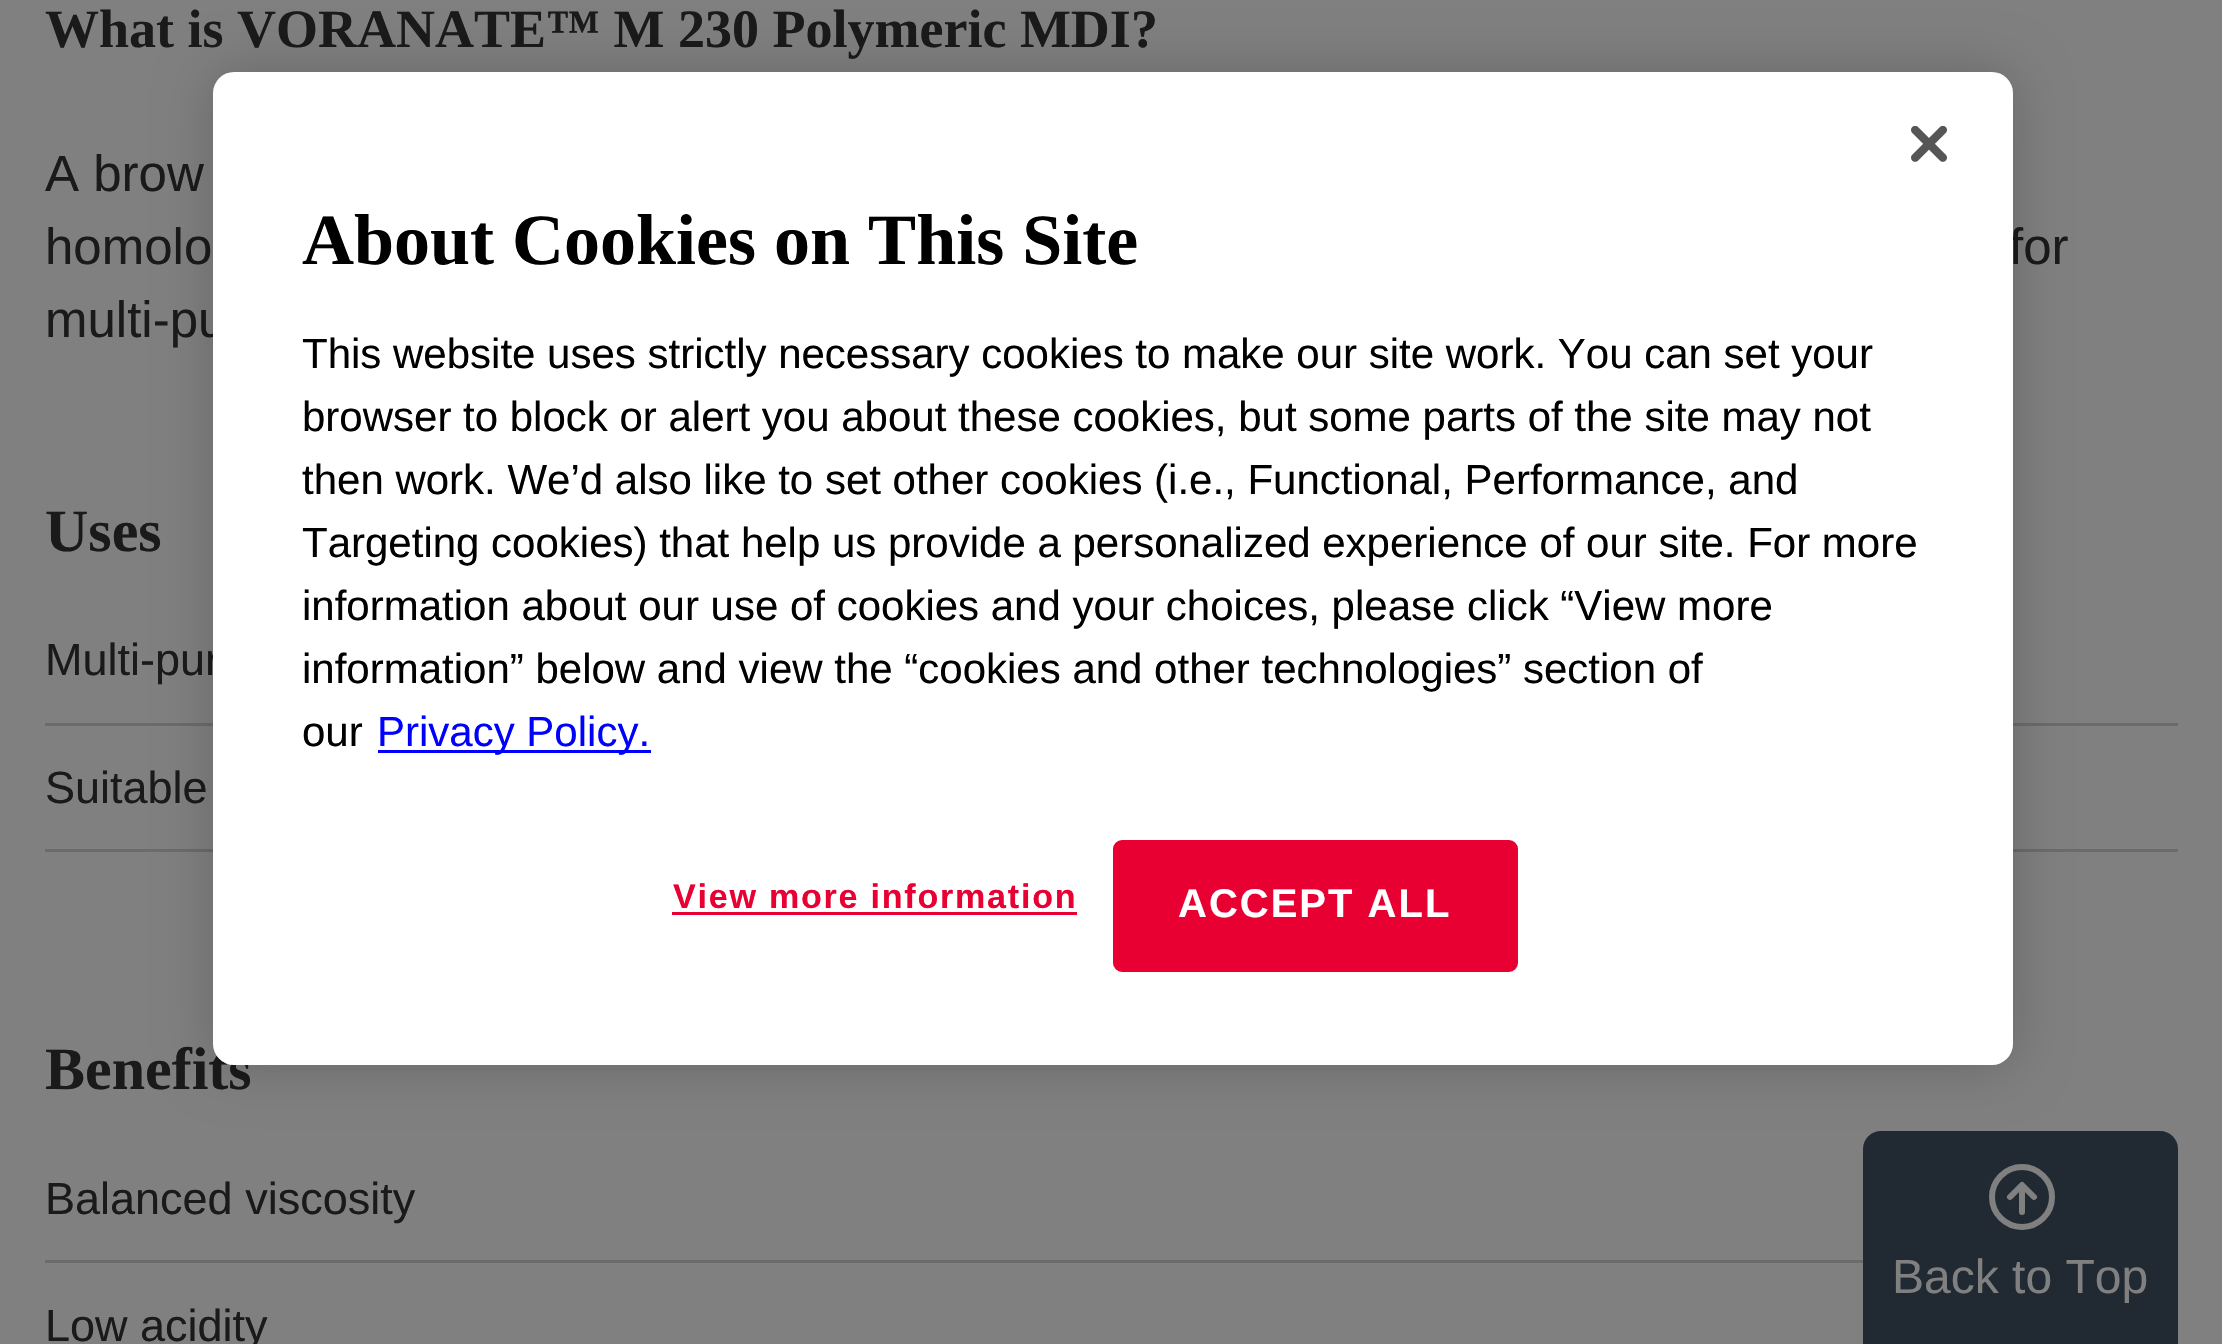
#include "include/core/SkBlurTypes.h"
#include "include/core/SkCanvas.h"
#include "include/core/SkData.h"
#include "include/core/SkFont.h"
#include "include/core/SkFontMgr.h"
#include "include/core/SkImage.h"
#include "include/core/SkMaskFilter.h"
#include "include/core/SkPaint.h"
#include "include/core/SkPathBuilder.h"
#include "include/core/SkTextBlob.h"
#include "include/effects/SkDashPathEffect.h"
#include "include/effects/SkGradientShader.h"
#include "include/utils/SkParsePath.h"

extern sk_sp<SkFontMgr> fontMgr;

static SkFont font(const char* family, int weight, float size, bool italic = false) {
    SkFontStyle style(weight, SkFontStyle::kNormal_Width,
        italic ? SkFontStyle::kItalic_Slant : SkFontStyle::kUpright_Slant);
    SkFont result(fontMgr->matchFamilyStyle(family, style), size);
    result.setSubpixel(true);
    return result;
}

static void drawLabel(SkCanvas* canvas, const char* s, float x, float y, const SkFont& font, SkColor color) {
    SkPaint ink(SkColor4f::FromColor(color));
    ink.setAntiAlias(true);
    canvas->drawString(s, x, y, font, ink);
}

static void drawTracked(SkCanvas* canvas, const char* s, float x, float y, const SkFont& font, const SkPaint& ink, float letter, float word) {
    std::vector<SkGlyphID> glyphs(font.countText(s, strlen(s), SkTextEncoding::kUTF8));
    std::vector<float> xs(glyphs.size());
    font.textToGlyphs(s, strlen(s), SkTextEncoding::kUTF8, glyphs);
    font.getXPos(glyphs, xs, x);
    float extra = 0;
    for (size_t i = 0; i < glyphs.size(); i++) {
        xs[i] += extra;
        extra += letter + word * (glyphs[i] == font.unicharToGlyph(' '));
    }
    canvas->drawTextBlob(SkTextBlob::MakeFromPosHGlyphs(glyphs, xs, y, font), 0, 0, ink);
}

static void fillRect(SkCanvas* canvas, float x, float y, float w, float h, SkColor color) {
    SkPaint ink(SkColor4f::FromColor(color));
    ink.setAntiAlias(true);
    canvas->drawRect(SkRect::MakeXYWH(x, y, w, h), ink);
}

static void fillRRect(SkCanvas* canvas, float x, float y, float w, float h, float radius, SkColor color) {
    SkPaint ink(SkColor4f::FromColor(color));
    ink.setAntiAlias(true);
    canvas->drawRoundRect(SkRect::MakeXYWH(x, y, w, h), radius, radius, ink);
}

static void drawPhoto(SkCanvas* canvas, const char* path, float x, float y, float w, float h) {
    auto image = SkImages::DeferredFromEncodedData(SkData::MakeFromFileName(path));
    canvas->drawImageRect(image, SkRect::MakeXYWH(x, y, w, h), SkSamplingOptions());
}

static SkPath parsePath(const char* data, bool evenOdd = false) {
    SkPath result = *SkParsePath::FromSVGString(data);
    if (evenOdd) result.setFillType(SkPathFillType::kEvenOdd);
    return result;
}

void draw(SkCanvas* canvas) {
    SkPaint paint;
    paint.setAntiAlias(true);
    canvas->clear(0xFF808080);
    SkFont font1 = font("Liberation Serif", 700, 54);
    drawLabel(canvas, "What is VORANATE™ M 230 Polymeric MDI?", 45, 47, font1, 0xFF1A1A1A);
    SkFont font2 = font("Liberation Sans", 400, 51);
    drawLabel(canvas, "A brow", 45, 191, font2, 0xFF1A1A1A);
    drawLabel(canvas, "homolo", 45, 264, font2, 0xFF1A1A1A);
    drawLabel(canvas, "for", 2009, 264, font2, 0xFF1A1A1A);
    drawLabel(canvas, "multi-pu", 45, 337, font2, 0xFF1A1A1A);
    SkFont font3 = font("Liberation Serif", 700, 60);
    drawLabel(canvas, "Uses", 45, 551, font3, 0xFF1A1A1A);
    fillRect(canvas, 45, 723, 2133, 3, 0xFF6B6B6B);
    SkFont font4 = font("Liberation Sans", 400, 45);
    drawLabel(canvas, "Multi-pur", 45, 675, font4, 0xFF1A1A1A);
    fillRect(canvas, 45, 849, 2133, 3, 0xFF6B6B6B);
    drawLabel(canvas, "Suitable", 45, 803, font4, 0xFF1A1A1A);
    drawLabel(canvas, "Benefits", 45, 1089, font3, 0xFF1A1A1A);
    fillRect(canvas, 45, 1260, 1818, 3, 0xFF6B6B6B);
    drawLabel(canvas, "Balanced viscosity", 45, 1214, font4, 0xFF1A1A1A);
    drawLabel(canvas, "Low acidity", 45, 1341, font4, 0xFF1A1A1A);
    paint.setColor(0xFF212A33);
    canvas->drawPath(parsePath("M1881 1131H2160C2170 1131 2178 1139 2178 1149V1344H1863V1149C1863 1139 1871 1131 1881 1131Z"), paint);
    paint.setColor(0x33000000);
    paint.setMaskFilter(SkMaskFilter::MakeBlur(kNormal_SkBlurStyle, 27));
    canvas->drawRoundRect(SkRect::MakeXYWH(213, 72, 1800, 993), 21, 21, paint);
    paint.setMaskFilter(nullptr);
    fillRRect(canvas, 213, 72, 1800, 993, 21, 0xFFFFFFFF);
    drawPhoto(canvas, "assets/img1.png", 1911, 126, 36, 36);
    SkFont font5 = font("Liberation Serif", 700, 72);
    drawLabel(canvas, "About Cookies on This Site", 302, 264, font5, 0xFF000000);
    SkFont font6 = font("Liberation Sans", 400, 42);
    drawLabel(canvas, "This website uses strictly necessary cookies to make our site work. You can set your", 302, 368, font6, 0xFF000000);
    drawLabel(canvas, "browser to block or alert you about these cookies, but some parts of the site may not", 302, 431, font6, 0xFF000000);
    drawLabel(canvas, "then work. We’d also like to set other cookies (i.e., Functional, Performance, and", 302, 494, font6, 0xFF000000);
    drawLabel(canvas, "Targeting cookies) that help us provide a personalized experience of our site. For more", 302, 557, font6, 0xFF000000);
    drawLabel(canvas, "information about our use of cookies and your choices, please click “View more", 302, 620, font6, 0xFF000000);
    drawLabel(canvas, "information” below and view the “cookies and other technologies” section of", 302, 683, font6, 0xFF000000);
    drawLabel(canvas, "our", 302, 746, font6, 0xFF000000);
    fillRect(canvas, 378, 750, 273, 3, 0xFF0000FF);
    drawLabel(canvas, "Privacy Policy.", 377, 746, font6, 0xFF0000FF);
    SkFont font7 = font("Liberation Sans", 700, 34.1f);
    paint.setColor(0xFFE80033);
    drawTracked(canvas, "View more information", 673, 908, font7, paint, 1.75f, 0);
    fillRect(canvas, 672, 912, 405, 3, 0xFFE80033);
    canvas->drawRoundRect(SkRect::MakeXYWH(1114.5f, 841.5f, 402, 129), 7.5f, 7.5f, paint);
    paint.setStroke(true);
    paint.setStrokeWidth(3);
    canvas->drawRoundRect(SkRect::MakeXYWH(1114.5f, 841.5f, 402, 129), 7.5f, 7.5f, paint);
    SkFont font8 = font("Liberation Sans", 700, 40);
    paint.setStroke(false);
    paint.setColor(0xFFFFFFFF);
    drawTracked(canvas, "ACCEPT ALL", 1178, 917, font8, paint, 2, 0);
    paint.setStroke(true);
    paint.setStrokeWidth(6);
    paint.setColor(0xFF808080);
    canvas->drawCircle(2022, 1197, 30, paint);
    paint.setStrokeCap(SkPaint::kRound_Cap);
    paint.setStrokeJoin(SkPaint::kRound_Join);
    canvas->drawPath(parsePath("M2034 1197L2022 1185L2010 1197M2022 1191V1212"), paint);
    SkFont font9 = font("Liberation Sans", 400, 48);
    drawLabel(canvas, "Back to Top", 1892, 1293, font9, 0xFF808080);
}
